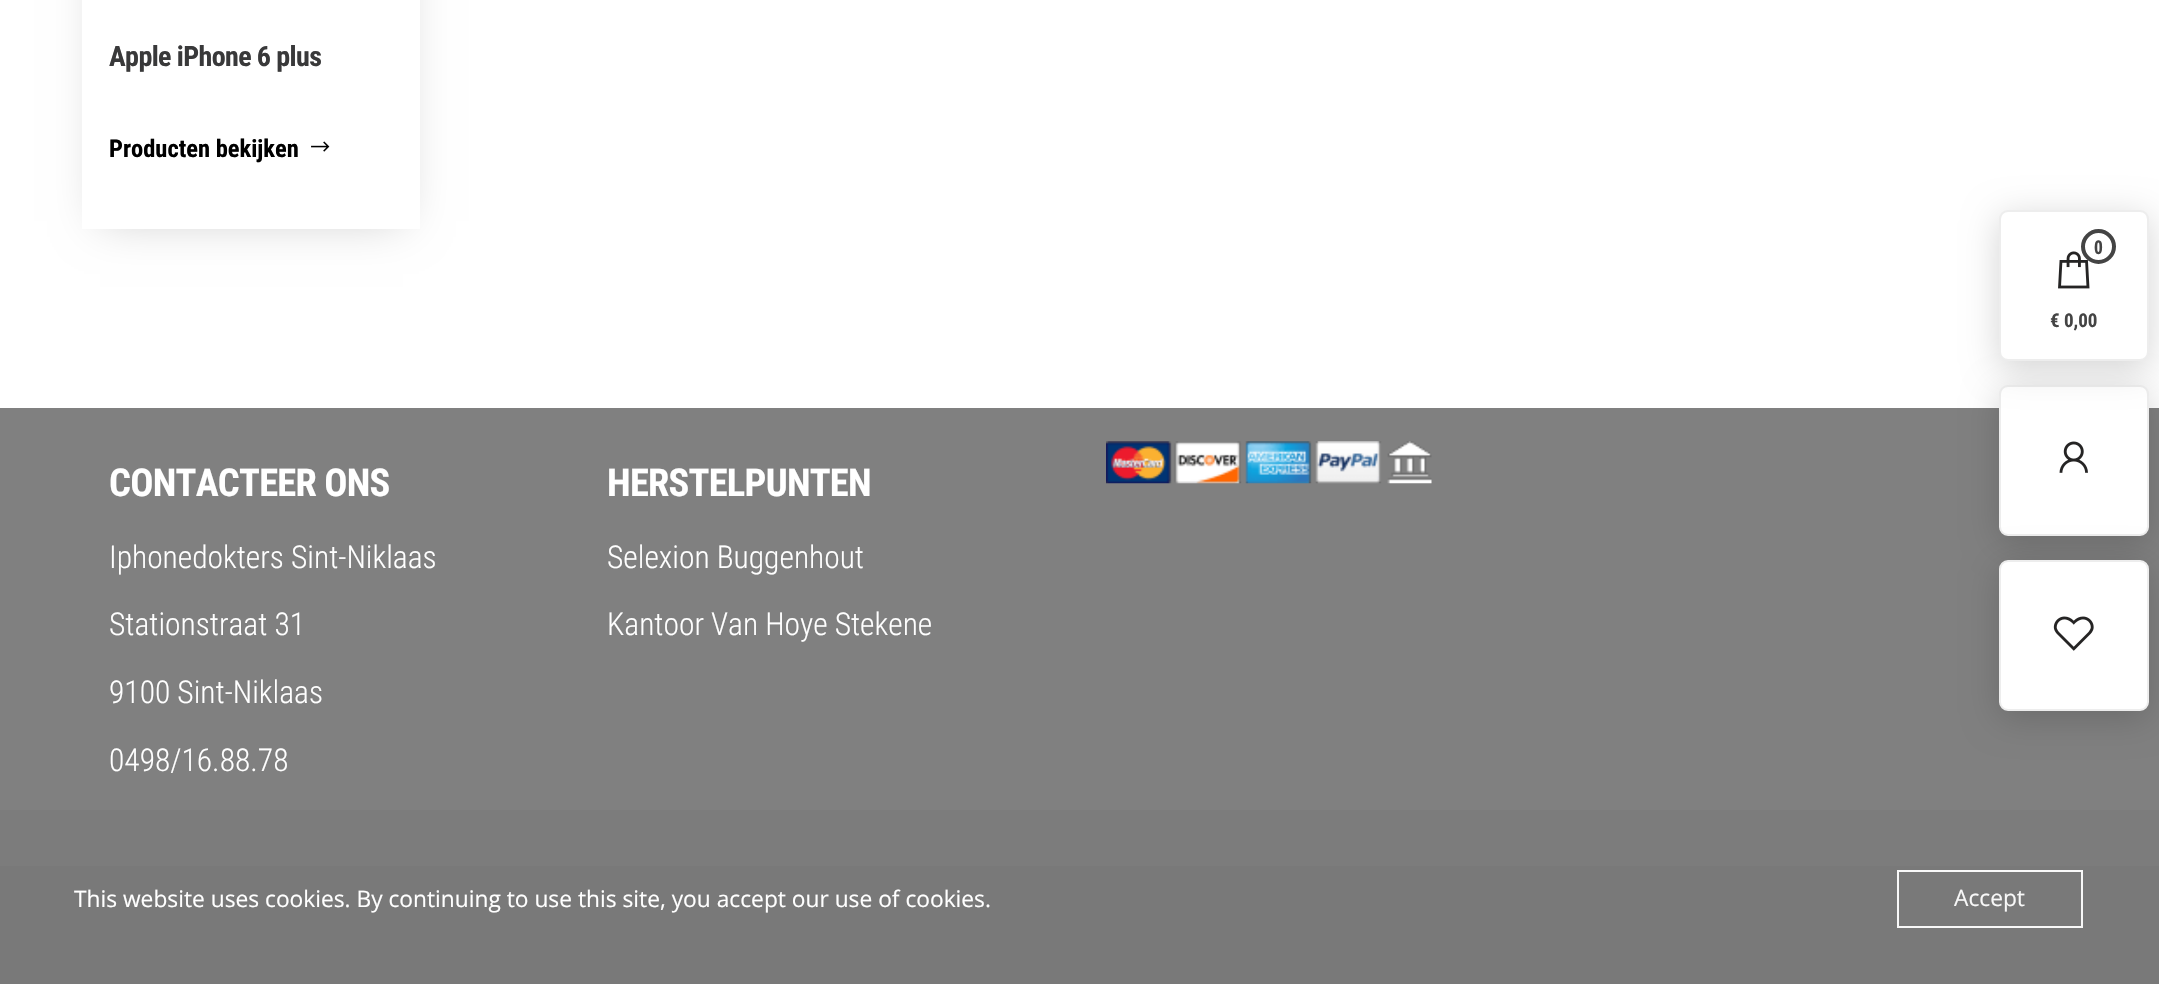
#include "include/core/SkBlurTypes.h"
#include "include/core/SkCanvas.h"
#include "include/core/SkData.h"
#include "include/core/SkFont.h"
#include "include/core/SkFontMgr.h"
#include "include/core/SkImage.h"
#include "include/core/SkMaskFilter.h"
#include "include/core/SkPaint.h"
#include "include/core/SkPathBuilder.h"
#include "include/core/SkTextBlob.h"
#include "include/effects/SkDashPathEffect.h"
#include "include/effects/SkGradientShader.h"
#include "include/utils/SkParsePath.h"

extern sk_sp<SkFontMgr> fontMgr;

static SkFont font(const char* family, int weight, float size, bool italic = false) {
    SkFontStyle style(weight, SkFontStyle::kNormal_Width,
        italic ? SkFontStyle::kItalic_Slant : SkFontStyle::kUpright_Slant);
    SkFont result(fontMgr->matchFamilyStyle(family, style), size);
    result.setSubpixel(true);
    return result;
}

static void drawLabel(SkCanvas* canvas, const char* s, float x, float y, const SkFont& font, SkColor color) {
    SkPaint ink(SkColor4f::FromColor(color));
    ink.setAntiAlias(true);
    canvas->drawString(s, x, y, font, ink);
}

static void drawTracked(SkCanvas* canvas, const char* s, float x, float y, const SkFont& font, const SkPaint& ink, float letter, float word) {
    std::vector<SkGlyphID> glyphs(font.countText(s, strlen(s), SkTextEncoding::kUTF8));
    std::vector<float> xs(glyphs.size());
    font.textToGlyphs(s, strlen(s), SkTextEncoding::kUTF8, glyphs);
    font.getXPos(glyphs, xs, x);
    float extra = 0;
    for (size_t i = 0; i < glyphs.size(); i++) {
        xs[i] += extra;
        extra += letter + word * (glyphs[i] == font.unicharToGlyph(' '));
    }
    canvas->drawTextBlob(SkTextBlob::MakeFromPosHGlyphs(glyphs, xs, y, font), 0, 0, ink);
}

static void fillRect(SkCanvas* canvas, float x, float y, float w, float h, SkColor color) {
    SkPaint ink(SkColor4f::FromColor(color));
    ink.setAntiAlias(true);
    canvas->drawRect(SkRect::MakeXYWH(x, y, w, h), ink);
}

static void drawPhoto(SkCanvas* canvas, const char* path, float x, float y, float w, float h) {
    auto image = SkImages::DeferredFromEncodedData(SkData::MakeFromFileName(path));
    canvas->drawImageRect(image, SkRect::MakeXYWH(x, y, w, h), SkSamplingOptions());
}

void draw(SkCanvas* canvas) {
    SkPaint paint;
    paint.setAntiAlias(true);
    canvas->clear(0xFFFFFFFF);
    paint.setColor(0x33000000);
    paint.setMaskFilter(SkMaskFilter::MakeBlur(kNormal_SkBlurStyle, 22));
    canvas->drawRect(SkRect::MakeXYWH(100, -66, 303, 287), paint);
    paint.setMaskFilter(nullptr);
    fillRect(canvas, 82, 0, 338, 229, 0xFFFFFFFF);
    SkFont font1 = font("Roboto Condensed", 700, 28);
    paint.setColor(0xFF39393A);
    drawTracked(canvas, "Apple iPhone 6 plus", 109, 66, font1, paint, -0.6f, 0);
    SkFont font2 = font("Roboto Condensed", 700, 24.5f);
    drawLabel(canvas, "Producten bekijken", 109, 157, font2, 0xFF000000);
    drawPhoto(canvas, "assets/img1.png", 311, 141, 19, 11);
    fillRect(canvas, 0, 408, 2159, 402, 0xFF808080);
    paint.setColor(0x2B000000);
    paint.setMaskFilter(SkMaskFilter::MakeBlur(kNormal_SkBlurStyle, 17.5f));
    canvas->drawRoundRect(SkRect::MakeXYWH(1999, 392, 150, 151), 9, 9, paint);
    paint.setMaskFilter(nullptr);
    paint.setColor(0xFFFFFFFF);
    canvas->drawRoundRect(SkRect::MakeXYWH(2000, 386, 148, 149), 8, 8, paint);
    paint.setStroke(true);
    paint.setStrokeWidth(2);
    paint.setColor(0xFFEDEDED);
    canvas->drawRoundRect(SkRect::MakeXYWH(2000, 386, 148, 149), 8, 8, paint);
    paint.setStroke(false);
    paint.setColor(0x2B000000);
    paint.setMaskFilter(SkMaskFilter::MakeBlur(kNormal_SkBlurStyle, 17.5f));
    canvas->drawRoundRect(SkRect::MakeXYWH(1999, 217, 150, 151), 9, 9, paint);
    paint.setMaskFilter(nullptr);
    paint.setColor(0xFFFFFFFF);
    canvas->drawRoundRect(SkRect::MakeXYWH(2000, 211, 148, 149), 8, 8, paint);
    paint.setStroke(true);
    paint.setColor(0xFFEDEDED);
    canvas->drawRoundRect(SkRect::MakeXYWH(2000, 211, 148, 149), 8, 8, paint);
    drawPhoto(canvas, "assets/img2.png", 2058, 251, 32, 38);
    paint.setStroke(false);
    paint.setColor(0xFFFFFFFF);
    canvas->drawCircle(2098.5f, 246.5f, 15.5f, paint);
    paint.setStroke(true);
    paint.setStrokeWidth(4);
    paint.setColor(0xFF444444);
    canvas->drawCircle(2098.5f, 246.5f, 15.5f, paint);
    SkFont font3 = font("Open Sans Condensed", 700, 19);
    drawLabel(canvas, "0", 2094, 254, font3, 0xFF444444);
    SkFont font4 = font("Roboto Condensed", 700, 19);
    drawLabel(canvas, "€ 0,00", 2050, 327, font4, 0xFF444444);
    drawPhoto(canvas, "assets/img3.png", 2059, 441, 29, 32);
    paint.setStroke(false);
    paint.setColor(0x2B000000);
    paint.setMaskFilter(SkMaskFilter::MakeBlur(kNormal_SkBlurStyle, 17.5f));
    canvas->drawRoundRect(SkRect::MakeXYWH(1999, 567, 150, 151), 9, 9, paint);
    paint.setMaskFilter(nullptr);
    paint.setColor(0xFFFFFFFF);
    canvas->drawRoundRect(SkRect::MakeXYWH(2000, 561, 148, 149), 8, 8, paint);
    paint.setStroke(true);
    paint.setStrokeWidth(2);
    paint.setColor(0xFFEDEDED);
    canvas->drawRoundRect(SkRect::MakeXYWH(2000, 561, 148, 149), 8, 8, paint);
    drawPhoto(canvas, "assets/img4.png", 2053, 616, 41, 35);
    fillRect(canvas, 0, 810, 2159, 56, 0xFF7C7C7C);
    drawPhoto(canvas, "assets/img5.png", 1106, 441, 326, 43);
    SkFont font5 = font("Roboto Condensed", 700, 38.5f);
    paint.setStroke(false);
    paint.setColor(0xFFFFFFFF);
    drawTracked(canvas, "CONTACTEER ONS", 109, 496, font5, paint, -0.75f, 0);
    SkFont font6 = font("Roboto Condensed", 300, 31.5f);
    drawLabel(canvas, "Iphonedokters Sint-Niklaas", 109, 568, font6, 0xFFFFFFFF);
    drawLabel(canvas, "Stationstraat 31", 109, 635, font6, 0xFFFFFFFF);
    drawLabel(canvas, "9100 Sint-Niklaas", 109, 703, font6, 0xFFFFFFFF);
    drawLabel(canvas, "0498/16.88.78", 109, 771, font6, 0xFFFFFFFF);
    drawTracked(canvas, "HERSTELPUNTEN", 607, 496, font5, paint, -0.75f, 0);
    drawLabel(canvas, "Selexion Buggenhout", 607, 568, font6, 0xFFFFFFFF);
    drawLabel(canvas, "Kantoor Van Hoye Stekene", 607, 635, font6, 0xFFFFFFFF);
    fillRect(canvas, 0, 866, 2159, 118, 0xFF797979);
    SkFont font7 = font("Open Sans", 400, 22.75f);
    drawLabel(canvas, "This website uses cookies. By continuing to use this site, you accept our use of cookies.", 74, 907, font7, 0xFFFFFFFF);
    paint.setStroke(true);
    paint.setColor(0xFFF8F8F8);
    canvas->drawRect(SkRect::MakeXYWH(1898, 871, 184, 56), paint);
    drawLabel(canvas, "Accept", 1954, 906, font7, 0xFFF8F8F8);
}
